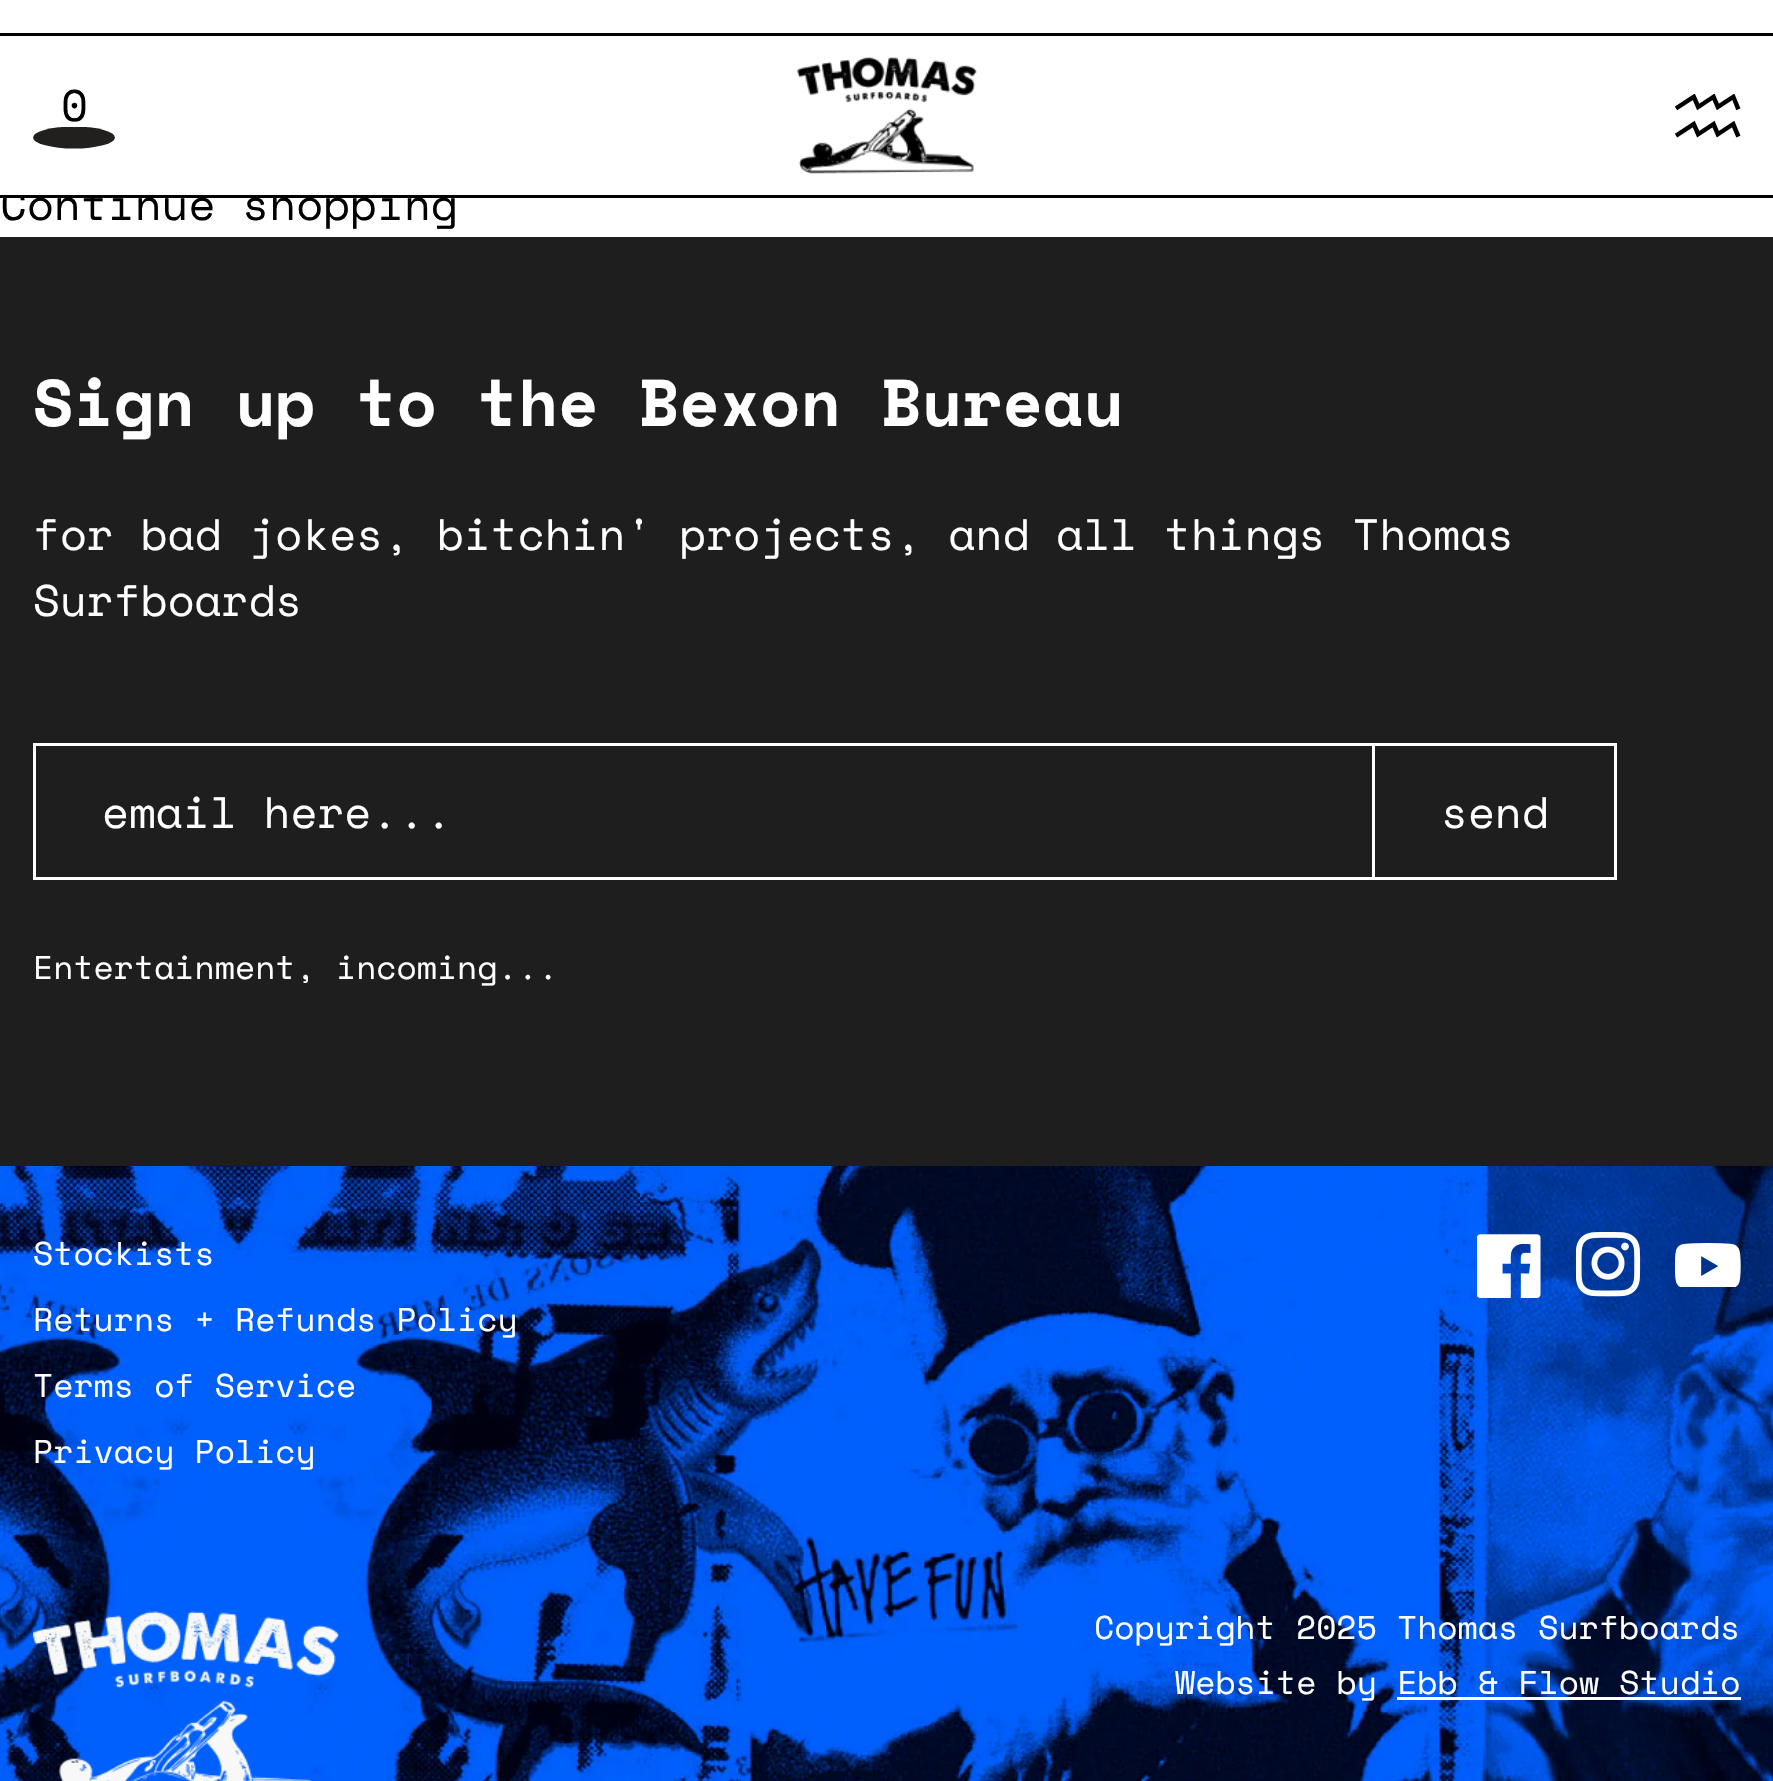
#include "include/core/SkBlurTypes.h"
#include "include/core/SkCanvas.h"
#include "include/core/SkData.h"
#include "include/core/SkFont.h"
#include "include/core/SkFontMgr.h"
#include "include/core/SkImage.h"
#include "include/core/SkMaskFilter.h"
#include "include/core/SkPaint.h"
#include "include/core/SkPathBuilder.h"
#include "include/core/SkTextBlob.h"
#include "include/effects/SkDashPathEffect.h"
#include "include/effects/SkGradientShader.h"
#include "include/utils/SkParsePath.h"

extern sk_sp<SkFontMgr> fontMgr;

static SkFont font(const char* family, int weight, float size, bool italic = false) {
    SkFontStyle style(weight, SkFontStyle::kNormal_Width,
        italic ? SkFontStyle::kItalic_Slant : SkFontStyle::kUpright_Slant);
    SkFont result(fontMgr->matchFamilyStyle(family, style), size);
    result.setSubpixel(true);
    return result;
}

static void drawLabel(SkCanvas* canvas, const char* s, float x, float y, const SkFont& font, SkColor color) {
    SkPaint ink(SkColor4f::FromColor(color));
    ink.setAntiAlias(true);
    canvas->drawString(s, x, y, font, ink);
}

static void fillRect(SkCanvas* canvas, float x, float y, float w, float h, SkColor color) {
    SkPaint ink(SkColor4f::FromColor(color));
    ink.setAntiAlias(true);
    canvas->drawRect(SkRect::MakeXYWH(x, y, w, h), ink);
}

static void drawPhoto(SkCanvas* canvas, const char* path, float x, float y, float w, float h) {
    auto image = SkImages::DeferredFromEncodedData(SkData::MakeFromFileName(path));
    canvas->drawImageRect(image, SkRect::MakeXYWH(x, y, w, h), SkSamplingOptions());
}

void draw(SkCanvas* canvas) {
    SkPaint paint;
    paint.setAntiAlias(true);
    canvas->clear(0xFFFFFFFF);
    SkFont font1 = font("Space Mono", 400, 44);
    drawLabel(canvas, "Continue shopping", 0, 220, font1, 0xFF000000);
    fillRect(canvas, 3, 188, 391, 7, 0xFFFFFFFF);
    fillRect(canvas, 0, 33, 1773, 3, 0xFF000000);
    fillRect(canvas, 0, 195, 1773, 3, 0xFF000000);
    drawLabel(canvas, "0", 61, 121, font1, 0xFF000000);
    canvas->save();
    canvas->clipRect(SkRect::MakeXYWH(33, 127, 83, 22));
    paint.setColor(0xFF221F1F);
    canvas->drawOval(SkRect::MakeXYWH(33, 126.5f, 82, 22), paint);
    canvas->restore();
    drawPhoto(canvas, "assets/img1.png", 797, 57, 180, 117);
    drawPhoto(canvas, "assets/img2.png", 1675, 94, 66, 44);
    fillRect(canvas, 0, 237, 1773, 929, 0xFF1E1E1E);
    SkFont font2 = font("Space Mono", 700, 66);
    drawLabel(canvas, "Sign up to the Bexon Bureau", 33, 426, font2, 0xFFFFFFFF);
    drawLabel(canvas, "for bad jokes, bitchin' projects, and all things Thomas", 33, 550, font1, 0xFFFFFFFF);
    drawLabel(canvas, "Surfboards", 33, 616, font1, 0xFFFFFFFF);
    fillRect(canvas, 33, 743, 1339, 3, 0xFFFFFFFF);
    fillRect(canvas, 33, 877, 1339, 3, 0xFFFFFFFF);
    fillRect(canvas, 33, 743, 3, 137, 0xFFFFFFFF);
    drawLabel(canvas, "email here...", 102, 828, font1, 0xFFFFFFFF);
    paint.setStroke(true);
    paint.setStrokeWidth(3);
    paint.setColor(0xFFFFFFFF);
    canvas->drawRect(SkRect::MakeXYWH(1373.5f, 744.5f, 242, 134), paint);
    drawLabel(canvas, "send", 1441, 828, font1, 0xFFFFFFFF);
    SkFont font3 = font("Space Mono", 400, 33);
    drawLabel(canvas, "Entertainment, incoming...", 33, 979, font3, 0xFFFFFFFF);
    drawPhoto(canvas, "assets/img3.png", 0, 1166, 1773, 615);
    drawLabel(canvas, "Stockists", 33, 1265, font3, 0xFFFFFFFF);
    drawLabel(canvas, "Returns + Refunds Policy", 33, 1331, font3, 0xFFFFFFFF);
    drawLabel(canvas, "Terms of Service", 33, 1397, font3, 0xFFFFFFFF);
    drawLabel(canvas, "Privacy Policy", 33, 1463, font3, 0xFFFFFFFF);
    drawPhoto(canvas, "assets/img4.png", 1477, 1234, 64, 64);
    drawPhoto(canvas, "assets/img5.png", 1576, 1232, 65, 65);
    drawPhoto(canvas, "assets/img6.png", 1675, 1243, 66, 44);
    drawPhoto(canvas, "assets/img7.png", 33, 1611, 306, 170);
    drawLabel(canvas, "Copyright 2025 Thomas Surfboards", 1094, 1639, font3, 0xFFFFFFFF);
    drawLabel(canvas, "Website by Ebb & Flow Studio", 1175, 1694, font3, 0xFFFFFFFF);
    fillRect(canvas, 1397, 1697, 344, 3, 0xFFFFFFFF);
}
